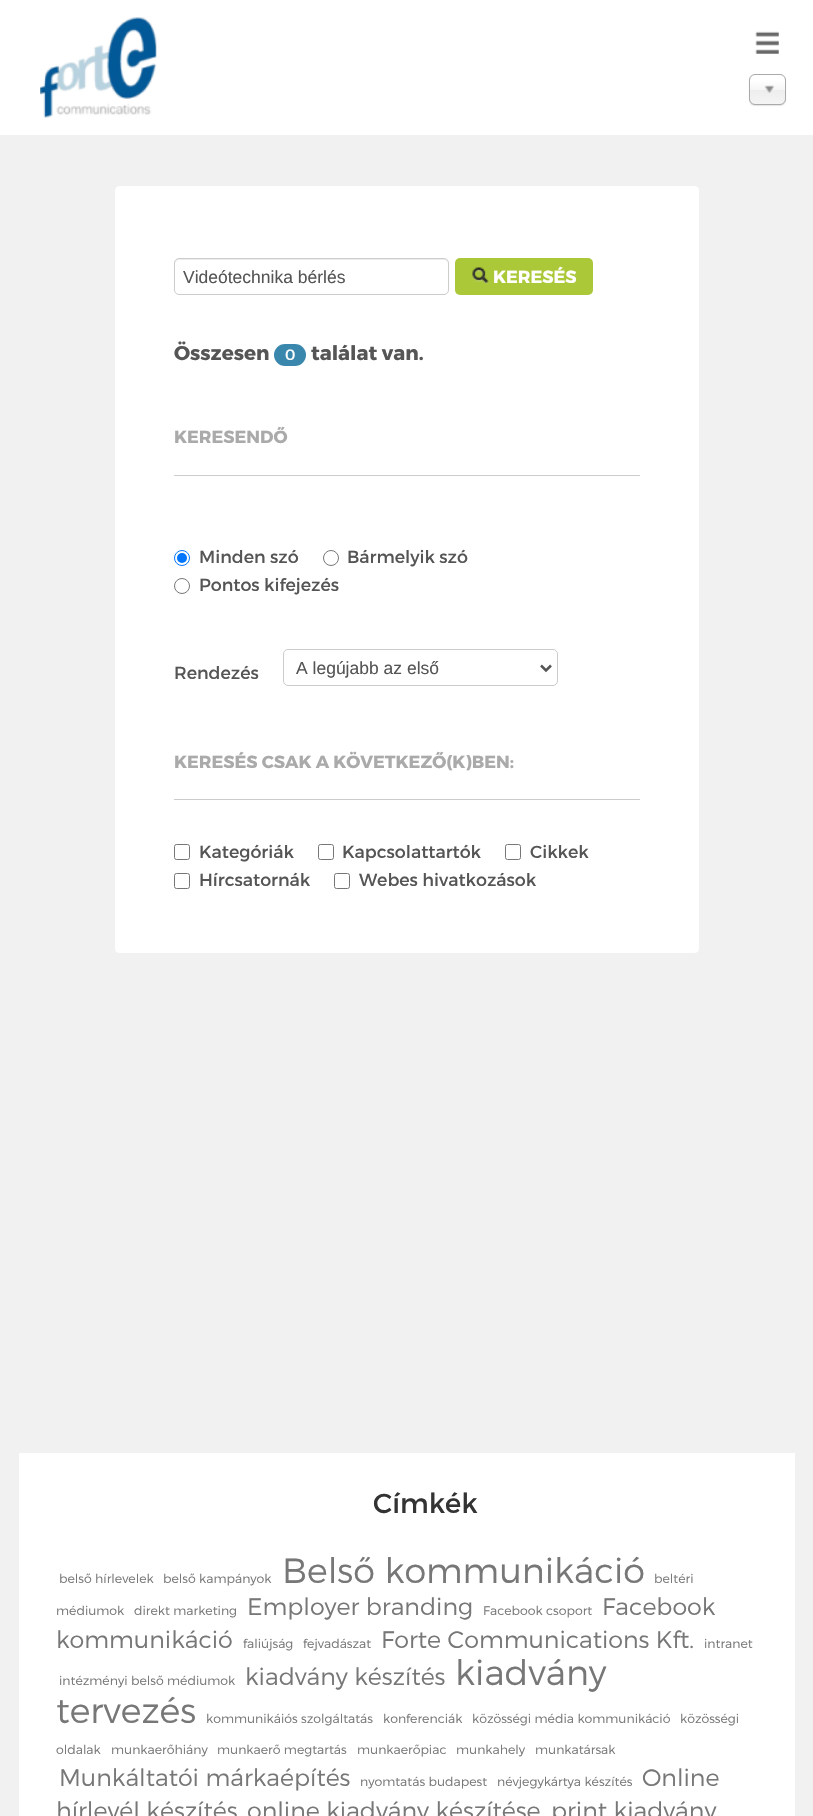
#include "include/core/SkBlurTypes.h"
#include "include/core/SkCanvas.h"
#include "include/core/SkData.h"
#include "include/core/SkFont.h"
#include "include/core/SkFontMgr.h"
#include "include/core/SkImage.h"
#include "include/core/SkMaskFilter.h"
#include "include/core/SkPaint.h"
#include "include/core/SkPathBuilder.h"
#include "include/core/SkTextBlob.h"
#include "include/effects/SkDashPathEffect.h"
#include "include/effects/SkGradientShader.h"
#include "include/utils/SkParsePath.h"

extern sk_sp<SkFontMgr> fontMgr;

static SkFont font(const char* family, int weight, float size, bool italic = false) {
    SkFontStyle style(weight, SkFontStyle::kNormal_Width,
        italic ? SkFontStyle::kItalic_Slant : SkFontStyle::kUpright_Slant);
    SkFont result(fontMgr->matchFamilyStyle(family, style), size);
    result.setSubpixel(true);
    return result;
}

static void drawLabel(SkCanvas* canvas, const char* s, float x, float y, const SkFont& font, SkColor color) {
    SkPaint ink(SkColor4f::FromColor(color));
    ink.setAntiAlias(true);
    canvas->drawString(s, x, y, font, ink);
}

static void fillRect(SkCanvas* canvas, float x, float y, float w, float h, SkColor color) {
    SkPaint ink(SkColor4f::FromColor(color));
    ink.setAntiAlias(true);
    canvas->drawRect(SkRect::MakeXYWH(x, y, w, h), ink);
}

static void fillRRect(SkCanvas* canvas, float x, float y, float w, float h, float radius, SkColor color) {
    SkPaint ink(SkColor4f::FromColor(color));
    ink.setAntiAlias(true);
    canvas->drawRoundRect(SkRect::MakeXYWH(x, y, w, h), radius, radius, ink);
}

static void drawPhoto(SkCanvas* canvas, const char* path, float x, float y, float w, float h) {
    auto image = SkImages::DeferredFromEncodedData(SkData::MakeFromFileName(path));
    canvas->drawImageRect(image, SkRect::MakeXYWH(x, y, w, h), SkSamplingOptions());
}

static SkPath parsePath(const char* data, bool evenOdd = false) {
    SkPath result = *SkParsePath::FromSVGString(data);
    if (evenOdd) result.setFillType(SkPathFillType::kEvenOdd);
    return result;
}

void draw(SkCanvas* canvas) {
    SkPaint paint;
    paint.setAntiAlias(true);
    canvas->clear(0xFFF1F1F1);
    fillRect(canvas, 0, 0, 813, 135, 0xFFFFFFFF);
    drawPhoto(canvas, "assets/img1.png", 40, 17, 117, 101);
    drawPhoto(canvas, "assets/img2.png", 755, 31, 24, 23);
    paint.setColor(0x1A000000);
    paint.setMaskFilter(SkMaskFilter::MakeBlur(kNormal_SkBlurStyle, 0.5f));
    canvas->drawRoundRect(SkRect::MakeXYWH(749, 75, 37, 31), 6, 6, paint);
    paint.setMaskFilter(nullptr);
    {
        const SkColor colors[] = {0xFFFFFFFF, 0xFFF6F6F6, 0xFFEEEEEE, 0xFFF4F4F4};
        const float stops[] = {0.2f, 0.5f, 0.52f, 1};
        const SkPoint ends[] = {{768, 75}, {768, 104}};
        paint.setShader(SkGradientShader::MakeLinear(ends, colors, stops, 4, SkTileMode::kClamp));
        paint.setAlpha(255);
    }
    canvas->drawRoundRect(SkRect::MakeXYWH(750, 75, 35, 29), 5, 5, paint);
    paint.setStroke(true);
    paint.setStrokeWidth(1);
    paint.setShader(nullptr);
    paint.setColor(0xFFAAAAAA);
    canvas->drawRoundRect(SkRect::MakeXYWH(749.5f, 74.5f, 36, 30), 5.5f, 5.5f, paint);
    drawPhoto(canvas, "assets/img3.png", 764, 85, 10, 8);
    paint.setStroke(false);
    paint.setColor(0xFFFFFFFF);
    canvas->drawRoundRect(SkRect::MakeXYWH(118, 189, 578, 761), 1, 1, paint);
    paint.setStroke(true);
    paint.setStrokeWidth(6);
    canvas->drawRoundRect(SkRect::MakeXYWH(118, 189, 578, 761), 1, 1, paint);
    fillRRect(canvas, 274, 344, 32, 22, 11, 0xFF3A87AD);
    fillRect(canvas, 174, 475, 466, 1, 0xFFCCCCCC);
    paint.setStrokeWidth(1);
    paint.setColor(0xFF0075FF);
    canvas->drawCircle(182, 558, 7.5f, paint);
    paint.setStroke(false);
    canvas->drawCircle(182, 558, 5, paint);
    paint.setStroke(true);
    paint.setColor(0xFF767676);
    canvas->drawCircle(331, 558, 7.5f, paint);
    canvas->drawCircle(182, 586, 7.5f, paint);
    paint.setColor(0xFFCCCCCC);
    canvas->drawRoundRect(SkRect::MakeXYWH(283.5f, 649.5f, 274, 36), 4.5f, 4.5f, paint);
    paint.setStrokeWidth(2.5f);
    paint.setColor(0xFF555555);
    canvas->drawPath(parsePath("M541 665.5L546 670.5L551 665.5"), paint);
    fillRect(canvas, 174, 799, 466, 1, 0xFFCCCCCC);
    paint.setStrokeWidth(1);
    paint.setColor(0xFF767676);
    canvas->drawRoundRect(SkRect::MakeXYWH(174.5f, 844.5f, 15, 15), 2, 2, paint);
    canvas->drawRoundRect(SkRect::MakeXYWH(318.5f, 844.5f, 15, 15), 2, 2, paint);
    canvas->drawRoundRect(SkRect::MakeXYWH(505.5f, 844.5f, 15, 15), 2, 2, paint);
    canvas->drawRoundRect(SkRect::MakeXYWH(174.5f, 873.5f, 15, 15), 2, 2, paint);
    canvas->drawRoundRect(SkRect::MakeXYWH(334.5f, 873.5f, 15, 15), 2, 2, paint);
    paint.setColor(0xFFF1F1F1);
    canvas->drawRoundRect(SkRect::MakeXYWH(114.5f, 185.5f, 585, 768), 4.5f, 4.5f, paint);
    paint.setStroke(false);
    paint.setColor(0xFFECECEC);
    canvas->drawPath(parsePath("M179 260H444C446 260 448 262 448 264C448 261 447 259 444 259H179C176 259 175 261 175 264C175 262 177 260 179 260Z"), paint);
    paint.setStroke(true);
    paint.setColor(0xFFCCCCCC);
    canvas->drawRoundRect(SkRect::MakeXYWH(174.5f, 258.5f, 274, 36), 4.5f, 4.5f, paint);
    SkFont font1 = font("Liberation Sans", 400, 17.5f);
    drawLabel(canvas, "Videótechnika bérlés", 183, 283, font1, 0xFF555555);
    fillRRect(canvas, 455, 258, 138, 37, 5, 0xFFABC838);
    drawPhoto(canvas, "assets/img4.png", 472, 267, 17, 17);
    SkFont font2 = font("Montserrat", 700, 17.5f);
    drawLabel(canvas, "KERESÉS", 493, 283, font2, 0xFFFFFFFF);
    SkFont font3 = font("Montserrat", 700, 20);
    drawLabel(canvas, "Összesen", 174, 360, font3, 0xFF555555);
    SkFont font4 = font("Montserrat", 400, 15);
    drawLabel(canvas, "0", 285, 360, font4, 0xFFFFFFFF);
    drawLabel(canvas, "találat van.", 311, 360, font3, 0xFF555555);
    drawLabel(canvas, "KERESENDŐ", 174, 443, font2, 0xFFAAAAAA);
    SkFont font5 = font("Montserrat", 400, 17.5f);
    drawLabel(canvas, "Minden szó", 199, 563, font5, 0xFF555555);
    drawLabel(canvas, "Bármelyik szó", 347, 563, font5, 0xFF555555);
    drawLabel(canvas, "Pontos kifejezés", 199, 591, font5, 0xFF555555);
    drawLabel(canvas, "Rendezés", 174, 679, font5, 0xFF555555);
    drawLabel(canvas, "A legújabb az első", 296, 674, font1, 0xFF555555);
    drawLabel(canvas, "KERESÉS CSAK A KÖVETKEZŐ(K)BEN:", 174, 768, font2, 0xFFAAAAAA);
    drawLabel(canvas, "Kategóriák", 199, 858, font5, 0xFF555555);
    drawLabel(canvas, "Kapcsolattartók", 342, 858, font5, 0xFF555555);
    drawLabel(canvas, "Cikkek", 530, 858, font5, 0xFF555555);
    drawLabel(canvas, "Hírcsatornák", 199, 886, font5, 0xFF555555);
    drawLabel(canvas, "Webes hivatkozások", 359, 886, font5, 0xFF555555);
    fillRect(canvas, 19, 1453, 776, 363, 0xFFFFFFFF);
    SkFont font6 = font("Montserrat", 400, 27.5f);
    drawLabel(canvas, "Címkék", 373, 1513, font6, 0xFF333333);
    SkFont font7 = font("Montserrat", 300, 12.5f);
    drawLabel(canvas, "belső hírlevelek", 59, 1583, font7, 0xFF777777);
    drawLabel(canvas, "belső kampányok", 163, 1583, font7, 0xFF777777);
    SkFont font8 = font("Montserrat", 300, 35);
    drawLabel(canvas, "Belső kommunikáció", 282, 1583, font8, 0xFF777777);
    drawLabel(canvas, "beltéri", 654, 1583, font7, 0xFF777777);
    drawLabel(canvas, "médiumok", 56, 1615, font7, 0xFF777777);
    drawLabel(canvas, "direkt marketing", 134, 1615, font7, 0xFF777777);
    SkFont font9 = font("Montserrat", 300, 23.75f);
    drawLabel(canvas, "Employer branding", 247, 1615, font9, 0xFF777777);
    drawLabel(canvas, "Facebook csoport", 483, 1615, font7, 0xFF777777);
    drawLabel(canvas, "Facebook", 602, 1615, font9, 0xFF777777);
    drawLabel(canvas, "kommunikáció", 56, 1648, font9, 0xFF777777);
    drawLabel(canvas, "faliújság", 243, 1648, font7, 0xFF777777);
    drawLabel(canvas, "fejvadászat", 303, 1648, font7, 0xFF777777);
    drawLabel(canvas, "Forte Communications Kft.", 381, 1648, font9, 0xFF777777);
    drawLabel(canvas, "intranet", 704, 1648, font7, 0xFF777777);
    drawLabel(canvas, "intézményi belső médiumok", 59, 1685, font7, 0xFF777777);
    drawLabel(canvas, "kiadvány készítés", 245, 1685, font9, 0xFF777777);
    drawLabel(canvas, "kiadvány", 455, 1685, font8, 0xFF777777);
    drawLabel(canvas, "tervezés", 56, 1723, font8, 0xFF777777);
    drawLabel(canvas, "kommunikáiós szolgáltatás", 206, 1723, font7, 0xFF777777);
    drawLabel(canvas, "konferenciák", 383, 1723, font7, 0xFF777777);
    drawLabel(canvas, "közösségi média kommunikáció", 472, 1723, font7, 0xFF777777);
    drawLabel(canvas, "közösségi", 680, 1723, font7, 0xFF777777);
    drawLabel(canvas, "oldalak", 56, 1754, font7, 0xFF777777);
    drawLabel(canvas, "munkaerőhiány", 111, 1754, font7, 0xFF777777);
    drawLabel(canvas, "munkaerő megtartás", 217, 1754, font7, 0xFF777777);
    drawLabel(canvas, "munkaerőpiac", 357, 1754, font7, 0xFF777777);
    drawLabel(canvas, "munkahely", 456, 1754, font7, 0xFF777777);
    drawLabel(canvas, "munkatársak", 535, 1754, font7, 0xFF777777);
    drawLabel(canvas, "Munkáltatói márkaépítés", 59, 1786, font9, 0xFF777777);
    drawLabel(canvas, "nyomtatás budapest", 360, 1786, font7, 0xFF777777);
    drawLabel(canvas, "névjegykártya készítés", 497, 1786, font7, 0xFF777777);
    drawLabel(canvas, "Online", 642, 1786, font9, 0xFF777777);
    drawLabel(canvas, "hírlevél készítés", 56, 1819, font9, 0xFF777777);
    drawLabel(canvas, "online kiadvány készítése", 247, 1819, font9, 0xFF777777);
    drawLabel(canvas, "print kiadvány", 551, 1819, font9, 0xFF777777);
}
